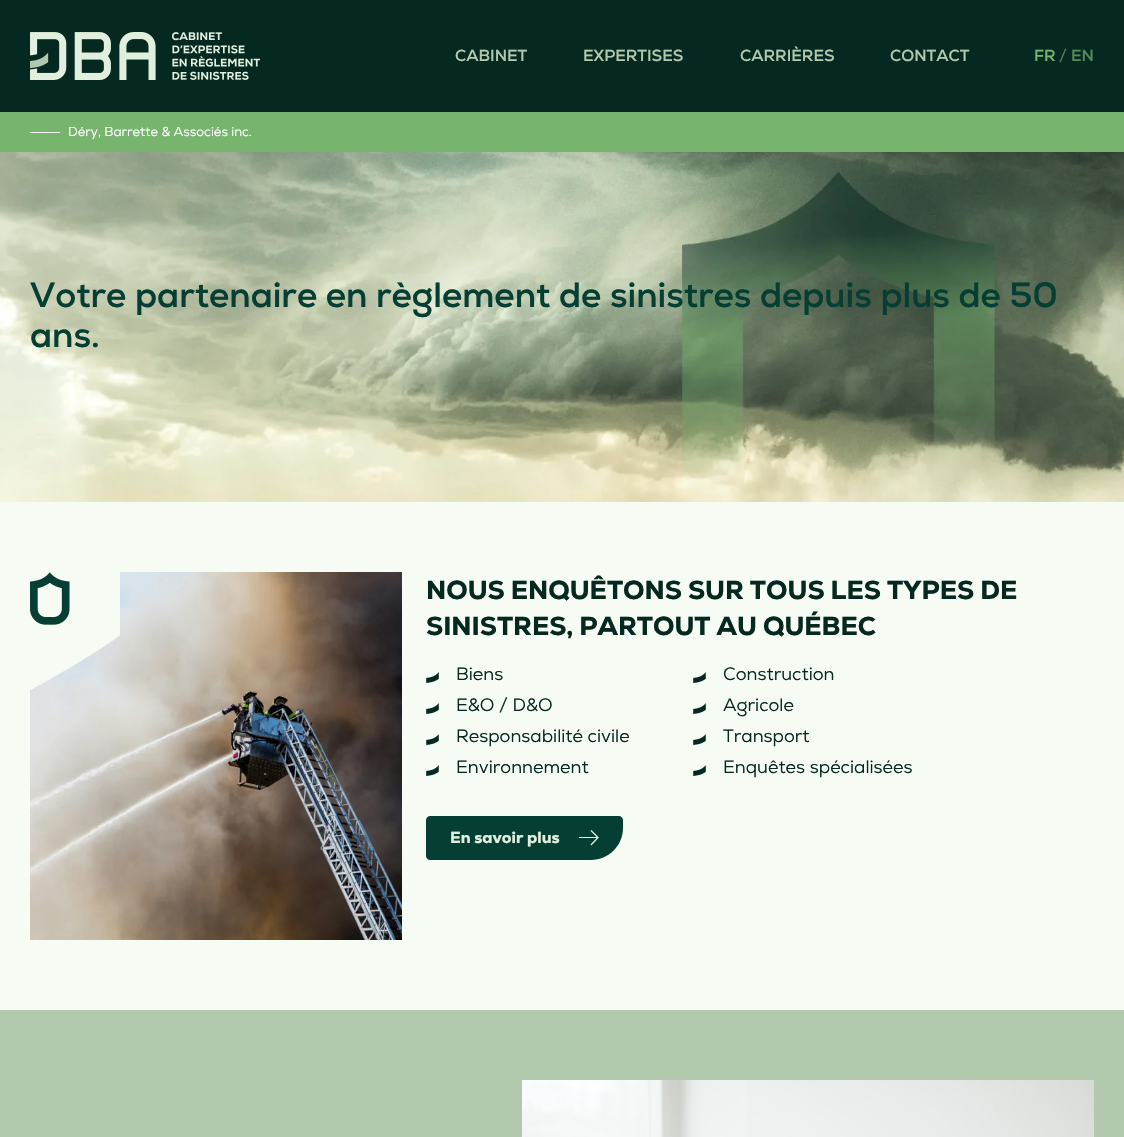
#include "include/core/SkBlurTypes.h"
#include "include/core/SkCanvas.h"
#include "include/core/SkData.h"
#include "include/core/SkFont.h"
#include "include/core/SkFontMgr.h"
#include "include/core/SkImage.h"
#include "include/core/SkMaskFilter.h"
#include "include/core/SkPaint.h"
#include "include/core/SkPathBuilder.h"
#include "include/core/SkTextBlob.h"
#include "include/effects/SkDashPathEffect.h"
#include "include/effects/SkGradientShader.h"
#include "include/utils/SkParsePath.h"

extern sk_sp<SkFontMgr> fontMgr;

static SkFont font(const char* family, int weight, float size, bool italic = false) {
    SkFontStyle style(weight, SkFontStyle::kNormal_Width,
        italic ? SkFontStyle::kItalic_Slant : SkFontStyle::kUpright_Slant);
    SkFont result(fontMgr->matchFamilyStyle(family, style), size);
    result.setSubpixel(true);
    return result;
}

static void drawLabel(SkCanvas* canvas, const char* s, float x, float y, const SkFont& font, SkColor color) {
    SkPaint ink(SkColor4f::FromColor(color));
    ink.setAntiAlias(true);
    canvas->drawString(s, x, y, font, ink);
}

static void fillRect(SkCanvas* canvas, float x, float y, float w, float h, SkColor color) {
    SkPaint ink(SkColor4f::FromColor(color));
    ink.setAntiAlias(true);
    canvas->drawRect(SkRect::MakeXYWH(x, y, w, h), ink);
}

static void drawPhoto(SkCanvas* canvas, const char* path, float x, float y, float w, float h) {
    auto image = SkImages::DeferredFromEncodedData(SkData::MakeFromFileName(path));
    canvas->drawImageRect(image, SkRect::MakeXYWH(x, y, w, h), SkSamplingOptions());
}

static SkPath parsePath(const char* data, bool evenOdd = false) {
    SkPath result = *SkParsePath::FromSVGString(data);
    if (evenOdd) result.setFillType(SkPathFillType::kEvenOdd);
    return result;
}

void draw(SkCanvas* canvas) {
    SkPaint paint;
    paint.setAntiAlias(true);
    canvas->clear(0xFFFFFFFF);
    fillRect(canvas, 0, 0, 1124, 112, 0xFF052921);
    drawPhoto(canvas, "assets/img1.png", 30, 32, 230, 48);
    SkFont font1 = font("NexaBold", 700, 16);
    drawLabel(canvas, "CABINET", 455, 61, font1, 0xFFB2C9AE);
    drawLabel(canvas, "EXPERTISES", 583, 61, font1, 0xFFB2C9AE);
    drawLabel(canvas, "CARRIÈRES", 740, 61, font1, 0xFFB2C9AE);
    drawLabel(canvas, "CONTACT", 890, 61, font1, 0xFFB2C9AE);
    drawLabel(canvas, "FR", 1034, 61, font1, 0xFF77B56F);
    SkFont font2 = font("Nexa", 300, 16);
    drawLabel(canvas, "/", 1059, 61, font2, 0xFF558B58);
    drawLabel(canvas, "EN", 1071, 61, font1, 0xFF558B58);
    fillRect(canvas, 0, 112, 1124, 40, 0xFF77B56F);
    fillRect(canvas, 30, 132, 30, 1, 0xFFF5F5F5);
    SkFont font3 = font("Nexa", 300, 13);
    drawLabel(canvas, "Déry, Barrette & Associés inc.", 68, 136, font3, 0xFFFFFFFF);
    drawPhoto(canvas, "assets/img2.png", 0, 152, 1124, 350);
    SkFont font4 = font("NexaBold", 700, 35);
    drawLabel(canvas, "Votre partenaire en règlement de sinistres depuis plus de 50", 30, 307, font4, 0xFF053F33);
    drawLabel(canvas, "ans.", 30, 347, font4, 0xFF053F33);
    fillRect(canvas, 0, 502, 1124, 508, 0xFFF6FBF4);
    drawPhoto(canvas, "assets/img3.png", 30, 572, 372, 368);
    drawPhoto(canvas, "assets/img4.png", 30, 572, 90, 118);
    SkFont font5 = font("Nexa", 900, 26);
    drawLabel(canvas, "NOUS ENQUÊTONS SUR TOUS LES TYPES DE", 426, 599, font5, 0xFF052921);
    drawLabel(canvas, "SINISTRES, PARTOUT AU QUÉBEC", 426, 635, font5, 0xFF052921);
    drawPhoto(canvas, "assets/img5.png", 426, 672, 13, 11);
    SkFont font6 = font("Nexa", 300, 18);
    drawLabel(canvas, "Biens", 456, 680, font6, 0xFF052921);
    drawPhoto(canvas, "assets/img5.png", 426, 703, 13, 11);
    drawLabel(canvas, "E&O / D&O", 456, 711, font6, 0xFF052921);
    drawPhoto(canvas, "assets/img5.png", 426, 734, 13, 11);
    drawLabel(canvas, "Responsabilité civile", 456, 742, font6, 0xFF052921);
    drawPhoto(canvas, "assets/img5.png", 426, 765, 13, 11);
    drawLabel(canvas, "Environnement", 456, 773, font6, 0xFF052921);
    drawPhoto(canvas, "assets/img5.png", 693, 672, 13, 11);
    drawLabel(canvas, "Construction", 723, 680, font6, 0xFF052921);
    drawPhoto(canvas, "assets/img5.png", 693, 703, 13, 11);
    drawLabel(canvas, "Agricole", 723, 711, font6, 0xFF052921);
    drawPhoto(canvas, "assets/img5.png", 693, 734, 13, 11);
    drawLabel(canvas, "Transport", 723, 742, font6, 0xFF052921);
    drawPhoto(canvas, "assets/img5.png", 693, 765, 13, 11);
    drawLabel(canvas, "Enquêtes spécialisées", 723, 773, font6, 0xFF052921);
    paint.setColor(0xFF053F33);
    canvas->drawPath(parsePath("M430 816H619C621 816 623 818 623 820V828C623 845.5 608.5 860 591 860H430C428 860 426 858 426 856V820C426 818 428 816 430 816Z"), paint);
    SkFont font7 = font("Nexa", 900, 16);
    drawLabel(canvas, "En savoir plus", 450, 843, font7, 0xFFE1F0DE);
    paint.setStroke(true);
    paint.setStrokeWidth(1.3f);
    paint.setColor(0xFFE1F0DE);
    canvas->drawPath(parsePath("M591 830.5L598 837.5L591 845"), paint);
    fillRect(canvas, 579, 837, 19, 1, 0xFFE1F0DE);
    fillRect(canvas, 0, 1010, 1124, 127, 0xFFB2C9AE);
    drawPhoto(canvas, "assets/img6.png", 522, 1080, 572, 57);
}
